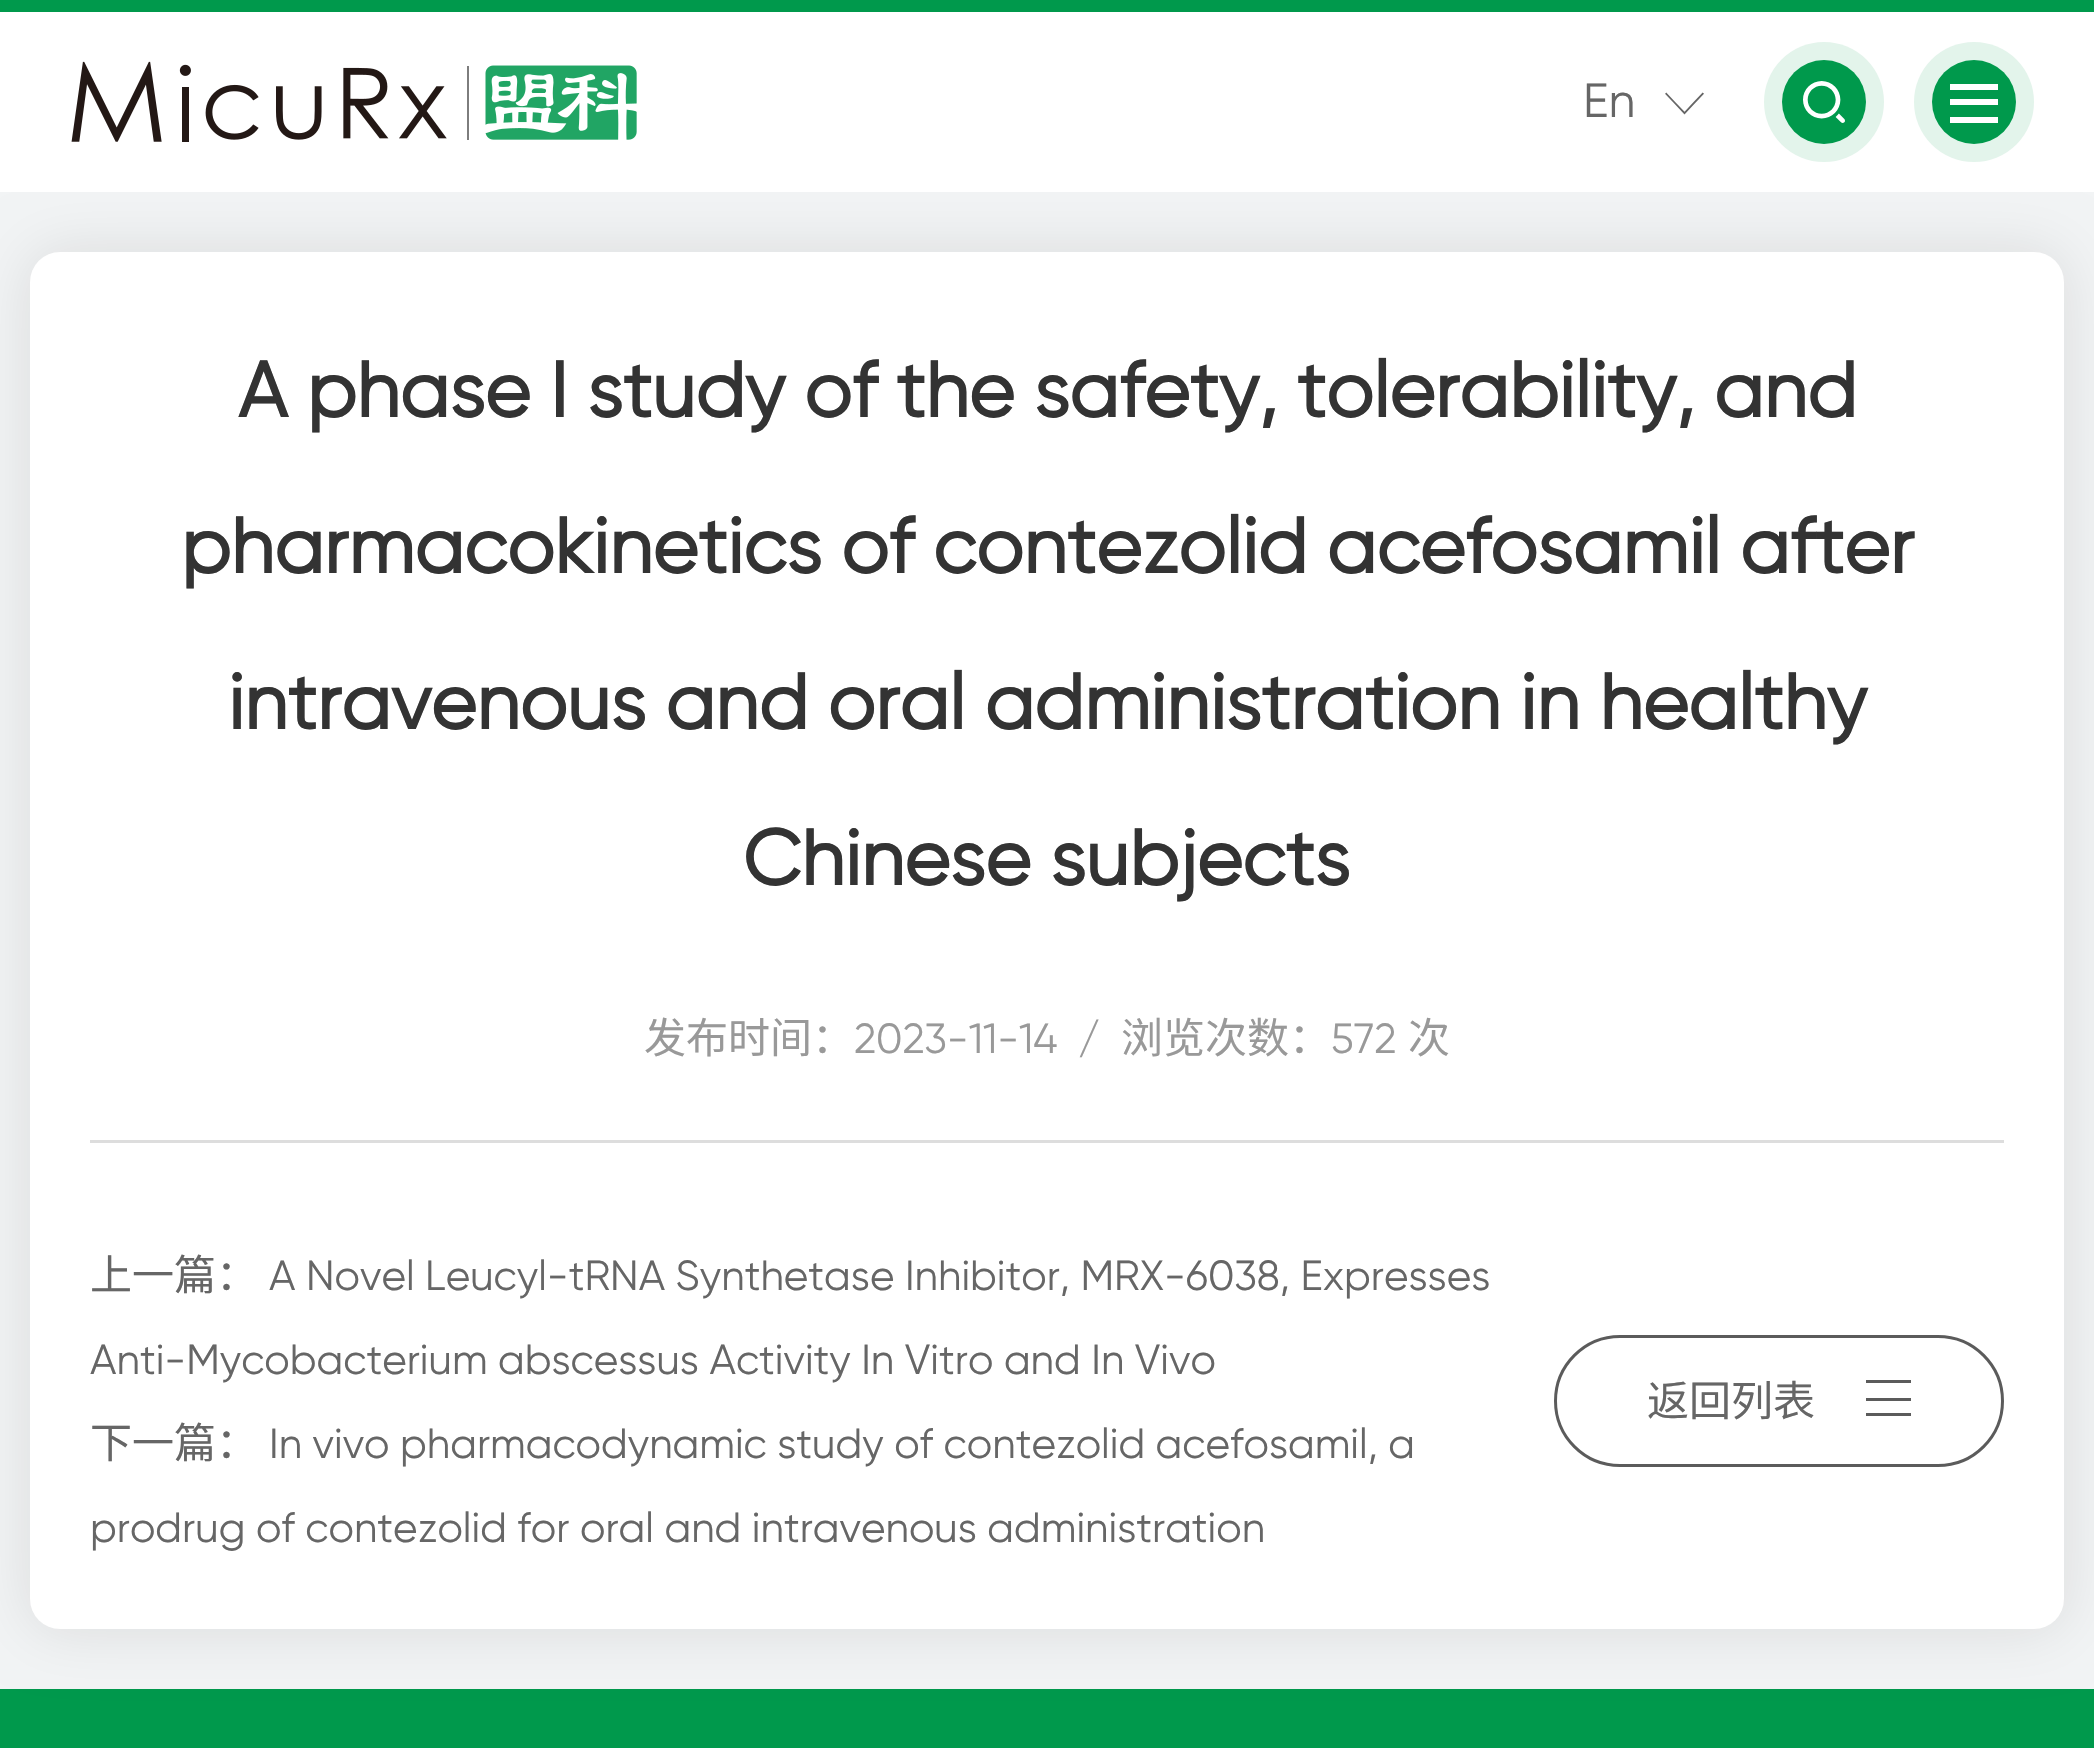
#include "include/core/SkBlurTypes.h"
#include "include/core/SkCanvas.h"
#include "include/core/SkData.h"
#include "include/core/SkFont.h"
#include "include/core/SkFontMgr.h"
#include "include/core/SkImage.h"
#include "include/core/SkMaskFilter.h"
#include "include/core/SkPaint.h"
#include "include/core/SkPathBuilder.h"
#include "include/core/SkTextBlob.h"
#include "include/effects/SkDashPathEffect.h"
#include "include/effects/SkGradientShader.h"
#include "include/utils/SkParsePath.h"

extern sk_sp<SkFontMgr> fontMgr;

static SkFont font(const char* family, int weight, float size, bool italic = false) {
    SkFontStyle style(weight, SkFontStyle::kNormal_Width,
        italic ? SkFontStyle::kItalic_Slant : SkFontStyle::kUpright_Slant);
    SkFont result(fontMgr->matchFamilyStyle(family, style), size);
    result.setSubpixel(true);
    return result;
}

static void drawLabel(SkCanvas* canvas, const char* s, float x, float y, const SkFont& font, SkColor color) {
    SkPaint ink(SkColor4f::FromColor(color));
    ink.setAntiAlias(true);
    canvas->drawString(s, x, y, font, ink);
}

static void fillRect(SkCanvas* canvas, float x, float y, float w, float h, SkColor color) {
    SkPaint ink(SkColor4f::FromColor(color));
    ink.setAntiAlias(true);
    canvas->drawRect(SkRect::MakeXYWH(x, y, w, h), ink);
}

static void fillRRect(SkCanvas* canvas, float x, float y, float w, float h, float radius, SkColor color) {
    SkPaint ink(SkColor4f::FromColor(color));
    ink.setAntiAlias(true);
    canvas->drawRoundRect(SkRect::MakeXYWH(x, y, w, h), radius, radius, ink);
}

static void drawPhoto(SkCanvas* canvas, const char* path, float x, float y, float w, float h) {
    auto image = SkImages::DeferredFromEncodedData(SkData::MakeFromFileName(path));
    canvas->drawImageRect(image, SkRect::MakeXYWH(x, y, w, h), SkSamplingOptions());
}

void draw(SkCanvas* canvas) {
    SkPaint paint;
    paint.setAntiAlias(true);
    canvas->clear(0xFFF2F4F5);
    fillRect(canvas, 0, 1689, 2094, 59, 0xFF00994C);
    paint.setColor(0x1A000000);
    paint.setMaskFilter(SkMaskFilter::MakeBlur(kNormal_SkBlurStyle, 30));
    canvas->drawRoundRect(SkRect::MakeXYWH(30, 252, 2034, 1377), 30, 30, paint);
    paint.setMaskFilter(nullptr);
    fillRect(canvas, 0, 12, 2094, 180, 0xFFFFFFFF);
    fillRect(canvas, 0, 0, 2094, 12, 0xFF00994C);
    drawPhoto(canvas, "assets/img1.png", 71, 61, 566, 81);
    SkFont font1 = font("Gilroy", 400, 48);
    drawLabel(canvas, "En", 1583, 117, font1, 0xFF666666);
    drawPhoto(canvas, "assets/img2.png", 1665, 92, 39, 23);
    paint.setColor(0xFFE3F4EB);
    canvas->drawCircle(1824, 102, 60, paint);
    paint.setColor(0xFF00994C);
    canvas->drawCircle(1824, 102, 42, paint);
    drawPhoto(canvas, "assets/img3.png", 1803, 81, 42, 42);
    paint.setColor(0xFFE3F4EB);
    canvas->drawCircle(1974, 102, 60, paint);
    paint.setColor(0xFF00994C);
    canvas->drawCircle(1974, 102, 42, paint);
    fillRect(canvas, 1950, 84, 48, 6, 0xFFFFFFFF);
    fillRect(canvas, 1950, 99, 48, 6, 0xFFFFFFFF);
    fillRect(canvas, 1950, 117, 48, 6, 0xFFFFFFFF);
    fillRRect(canvas, 30, 252, 2034, 1377, 30, 0xFFFFFFFF);
    SkFont font2 = font("Gilroy", 700, 78);
    drawLabel(canvas, "A phase I study of the safety, tolerability, and", 238, 417, font2, 0xFF333333);
    drawLabel(canvas, "pharmacokinetics of contezolid acefosamil after", 181, 573, font2, 0xFF333333);
    drawLabel(canvas, "intravenous and oral administration in healthy", 228, 729, font2, 0xFF333333);
    drawLabel(canvas, "Chinese subjects", 743, 885, font2, 0xFF333333);
    SkFont font3 = font("Noto Sans CJK SC", 400, 42);
    drawLabel(canvas, "发布时间：", 644, 1053, font3, 0xFF999999);
    SkFont font4 = font("Gilroy", 400, 42);
    drawLabel(canvas, "2023-11-14", 854, 1053, font4, 0xFF999999);
    drawLabel(canvas, "/", 1078, 1053, font4, 0xFF999999);
    drawLabel(canvas, "浏览次数：", 1121, 1053, font3, 0xFF999999);
    drawLabel(canvas, "572", 1331, 1053, font4, 0xFF999999);
    drawLabel(canvas, "次", 1408, 1053, font3, 0xFF999999);
    fillRect(canvas, 90, 1140, 1914, 3, 0xFFDDDDDD);
    drawLabel(canvas, "上一篇：", 90, 1290, font3, 0xFF666666);
    drawLabel(canvas, "A Novel Leucyl-tRNA Synthetase Inhibitor, MRX-6038, Expresses", 269, 1290, font4, 0xFF666666);
    drawLabel(canvas, "Anti-Mycobacterium abscessus Activity In Vitro and In Vivo", 90, 1374, font4, 0xFF666666);
    paint.setStroke(true);
    paint.setStrokeWidth(3);
    paint.setColor(0xFF5B5B5B);
    canvas->drawRoundRect(SkRect::MakeXYWH(1555.5f, 1336.5f, 447, 129), 64.5f, 64.5f, paint);
    drawLabel(canvas, "返回列表", 1647, 1416, font3, 0xFF666666);
    fillRect(canvas, 1866, 1380, 45, 3, 0xFF5B5B5B);
    fillRect(canvas, 1866, 1398, 45, 3, 0xFF5B5B5B);
    fillRect(canvas, 1866, 1413, 45, 3, 0xFF5B5B5B);
    drawLabel(canvas, "下一篇：", 90, 1458, font3, 0xFF666666);
    drawLabel(canvas, "In vivo pharmacodynamic study of contezolid acefosamil, a", 269, 1458, font4, 0xFF666666);
    drawLabel(canvas, "prodrug of contezolid for oral and intravenous administration", 90, 1542, font4, 0xFF666666);
}
